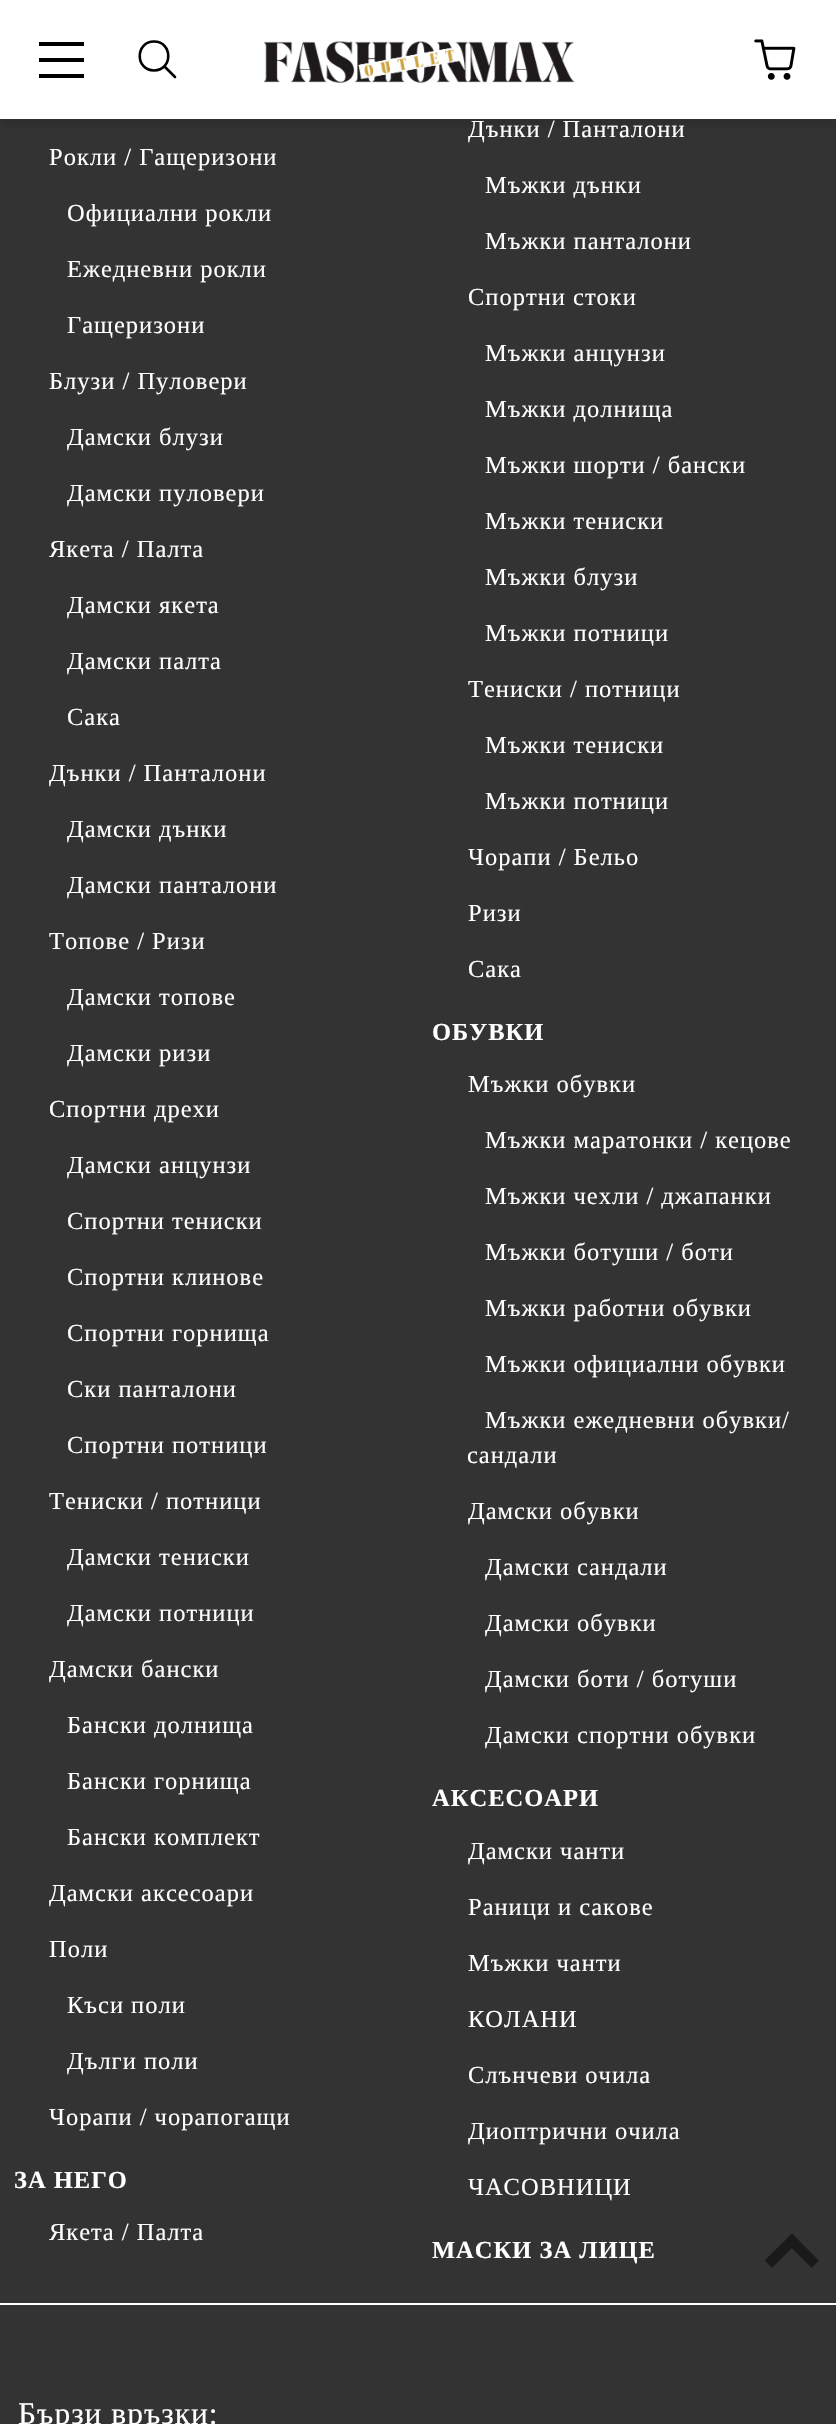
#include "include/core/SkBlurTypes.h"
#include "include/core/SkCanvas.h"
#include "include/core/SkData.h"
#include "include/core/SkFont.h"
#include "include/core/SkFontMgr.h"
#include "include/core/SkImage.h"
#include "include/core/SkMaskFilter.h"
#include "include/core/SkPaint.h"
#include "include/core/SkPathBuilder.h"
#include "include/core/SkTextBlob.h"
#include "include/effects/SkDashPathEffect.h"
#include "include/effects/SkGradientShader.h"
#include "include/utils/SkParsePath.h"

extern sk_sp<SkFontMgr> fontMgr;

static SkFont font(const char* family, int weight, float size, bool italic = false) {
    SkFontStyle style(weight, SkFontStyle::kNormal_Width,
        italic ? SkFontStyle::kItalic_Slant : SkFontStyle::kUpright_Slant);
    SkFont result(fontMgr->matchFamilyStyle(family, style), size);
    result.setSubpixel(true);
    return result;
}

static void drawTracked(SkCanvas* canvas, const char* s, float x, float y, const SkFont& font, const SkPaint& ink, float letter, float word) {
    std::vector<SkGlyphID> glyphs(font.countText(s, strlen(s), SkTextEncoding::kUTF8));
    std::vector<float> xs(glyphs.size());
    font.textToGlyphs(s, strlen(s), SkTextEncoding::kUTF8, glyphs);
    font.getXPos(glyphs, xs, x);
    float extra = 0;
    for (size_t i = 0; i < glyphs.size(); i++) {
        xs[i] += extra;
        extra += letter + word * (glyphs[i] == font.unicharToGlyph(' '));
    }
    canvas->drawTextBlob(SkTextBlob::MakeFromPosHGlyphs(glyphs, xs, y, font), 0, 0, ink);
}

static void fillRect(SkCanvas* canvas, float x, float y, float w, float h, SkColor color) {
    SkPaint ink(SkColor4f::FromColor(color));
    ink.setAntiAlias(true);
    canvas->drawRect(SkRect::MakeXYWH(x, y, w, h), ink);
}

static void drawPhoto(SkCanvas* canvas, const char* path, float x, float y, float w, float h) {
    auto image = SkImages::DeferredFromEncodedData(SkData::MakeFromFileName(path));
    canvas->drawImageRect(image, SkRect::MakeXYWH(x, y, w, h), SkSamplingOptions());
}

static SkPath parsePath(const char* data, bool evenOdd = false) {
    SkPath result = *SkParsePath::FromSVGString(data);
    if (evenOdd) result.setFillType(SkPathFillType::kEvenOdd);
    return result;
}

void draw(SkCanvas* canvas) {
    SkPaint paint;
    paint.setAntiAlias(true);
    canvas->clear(0xFF333333);
    paint.setColor(0x1A000000);
    paint.setMaskFilter(SkMaskFilter::MakeBlur(kNormal_SkBlurStyle, 3.5f));
    canvas->drawRect(SkRect::MakeXYWH(0, 7, 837, 119), paint);
    paint.setMaskFilter(nullptr);
    fillRect(canvas, 0, 0, 836, 119, 0xFFFFFFFF);
    fillRect(canvas, 39, 42, 45, 4, 0xFF000000);
    fillRect(canvas, 39, 58, 45, 4, 0xFF000000);
    fillRect(canvas, 39, 74, 45, 4, 0xFF000000);
    paint.setStroke(true);
    paint.setStrokeWidth(2.6f);
    paint.setColor(0xFF000000);
    canvas->drawPath(parsePath("M154 41.5C135 41.5 135 70.5 154 70.5C173 70.5 173 41.5 154 41.5Z"), paint);
    paint.setStrokeCap(SkPaint::kRound_Cap);
    canvas->drawPath(parsePath("M165 67L175 77"), paint);
    drawPhoto(canvas, "assets/img1.png", 263, 41, 312, 42);
    drawPhoto(canvas, "assets/img2.png", 754, 39, 42, 41);
    fillRect(canvas, 0, 2303, 836, 2, 0xFFFFFFFF);
    SkFont font1 = font("Liberation Serif", 400, 24.5f);
    paint.setStroke(false);
    paint.setColor(0xFFFFFFFF);
    drawTracked(canvas, "Рокли / Гащеризони", 49, 165, font1, paint, 1, 0);
    drawTracked(canvas, "Официални рокли", 67, 221, font1, paint, 1, 0);
    drawTracked(canvas, "Ежедневни рокли", 67, 277, font1, paint, 1, 0);
    drawTracked(canvas, "Гащеризони", 67, 333, font1, paint, 1, 0);
    drawTracked(canvas, "Блузи / Пуловери", 49, 389, font1, paint, 1, 0);
    drawTracked(canvas, "Дамски блузи", 67, 445, font1, paint, 1, 0);
    drawTracked(canvas, "Дамски пуловери", 67, 501, font1, paint, 1, 0);
    drawTracked(canvas, "Якета / Палта", 49, 557, font1, paint, 1, 0);
    drawTracked(canvas, "Дамски якета", 67, 613, font1, paint, 1, 0);
    drawTracked(canvas, "Дамски палта", 67, 669, font1, paint, 1, 0);
    drawTracked(canvas, "Сака", 67, 725, font1, paint, 1, 0);
    drawTracked(canvas, "Дънки / Панталони", 49, 781, font1, paint, 1, 0);
    drawTracked(canvas, "Дамски дънки", 67, 837, font1, paint, 1, 0);
    drawTracked(canvas, "Дамски панталони", 67, 893, font1, paint, 1, 0);
    drawTracked(canvas, "Топове / Ризи", 49, 949, font1, paint, 1, 0);
    drawTracked(canvas, "Дамски топове", 67, 1005, font1, paint, 1, 0);
    drawTracked(canvas, "Дамски ризи", 67, 1061, font1, paint, 1, 0);
    drawTracked(canvas, "Спортни дрехи", 49, 1117, font1, paint, 1, 0);
    drawTracked(canvas, "Дамски анцунзи", 67, 1173, font1, paint, 1, 0);
    drawTracked(canvas, "Спортни тениски", 67, 1229, font1, paint, 1, 0);
    drawTracked(canvas, "Спортни клинове", 67, 1285, font1, paint, 1, 0);
    drawTracked(canvas, "Спортни горнища", 67, 1341, font1, paint, 1, 0);
    drawTracked(canvas, "Ски панталони", 67, 1397, font1, paint, 1, 0);
    drawTracked(canvas, "Спортни потници", 67, 1453, font1, paint, 1, 0);
    drawTracked(canvas, "Тениски / потници", 49, 1509, font1, paint, 1, 0);
    drawTracked(canvas, "Дамски тениски", 67, 1565, font1, paint, 1, 0);
    drawTracked(canvas, "Дамски потници", 67, 1621, font1, paint, 1, 0);
    drawTracked(canvas, "Дамски бански", 49, 1677, font1, paint, 1, 0);
    drawTracked(canvas, "Бански долнища", 67, 1733, font1, paint, 1, 0);
    drawTracked(canvas, "Бански горнища", 67, 1789, font1, paint, 1, 0);
    drawTracked(canvas, "Бански комплект", 67, 1845, font1, paint, 1, 0);
    drawTracked(canvas, "Дамски аксесоари", 49, 1901, font1, paint, 1, 0);
    drawTracked(canvas, "Поли", 49, 1957, font1, paint, 1, 0);
    drawTracked(canvas, "Къси поли", 67, 2013, font1, paint, 1, 0);
    drawTracked(canvas, "Дълги поли", 67, 2069, font1, paint, 1, 0);
    drawTracked(canvas, "Чорапи / чорапогащи", 49, 2125, font1, paint, 1, 0);
    SkFont font2 = font("Liberation Serif", 700, 24.5f);
    drawTracked(canvas, "ЗА НЕГО", 14, 2188, font2, paint, 1, 0);
    drawTracked(canvas, "Якета / Палта", 49, 2240, font1, paint, 1, 0);
    drawTracked(canvas, "Дънки / Панталони", 468, 137, font1, paint, 1, 0);
    drawTracked(canvas, "Мъжки дънки", 485, 193, font1, paint, 1, 0);
    drawTracked(canvas, "Мъжки панталони", 485, 249, font1, paint, 1, 0);
    drawTracked(canvas, "Спортни стоки", 468, 305, font1, paint, 1, 0);
    drawTracked(canvas, "Мъжки анцунзи", 485, 361, font1, paint, 1, 0);
    drawTracked(canvas, "Мъжки долнища", 485, 417, font1, paint, 1, 0);
    drawTracked(canvas, "Мъжки шорти / бански", 485, 473, font1, paint, 1, 0);
    drawTracked(canvas, "Мъжки тениски", 485, 529, font1, paint, 1, 0);
    drawTracked(canvas, "Мъжки блузи", 485, 585, font1, paint, 1, 0);
    drawTracked(canvas, "Мъжки потници", 485, 641, font1, paint, 1, 0);
    drawTracked(canvas, "Тениски / потници", 468, 697, font1, paint, 1, 0);
    drawTracked(canvas, "Мъжки тениски", 485, 753, font1, paint, 1, 0);
    drawTracked(canvas, "Мъжки потници", 485, 809, font1, paint, 1, 0);
    drawTracked(canvas, "Чорапи / Бельо", 468, 865, font1, paint, 1, 0);
    drawTracked(canvas, "Ризи", 468, 921, font1, paint, 1, 0);
    drawTracked(canvas, "Сака", 468, 977, font1, paint, 1, 0);
    drawTracked(canvas, "ОБУВКИ", 432, 1040, font2, paint, 1, 0);
    drawTracked(canvas, "Мъжки обувки", 468, 1092, font1, paint, 1, 0);
    drawTracked(canvas, "Мъжки маратонки / кецове", 485, 1148, font1, paint, 1, 0);
    drawTracked(canvas, "Мъжки чехли / джапанки", 485, 1204, font1, paint, 1, 0);
    drawTracked(canvas, "Мъжки ботуши / боти", 485, 1260, font1, paint, 1, 0);
    drawTracked(canvas, "Мъжки работни обувки", 485, 1316, font1, paint, 1, 0);
    drawTracked(canvas, "Мъжки официални обувки", 485, 1372, font1, paint, 1, 0);
    drawTracked(canvas, "Мъжки ежедневни обувки/", 485, 1428, font1, paint, 1, 0);
    drawTracked(canvas, "сандали", 467, 1463, font1, paint, 1, 0);
    drawTracked(canvas, "Дамски обувки", 468, 1519, font1, paint, 1, 0);
    drawTracked(canvas, "Дамски сандали", 485, 1575, font1, paint, 1, 0);
    drawTracked(canvas, "Дамски обувки", 485, 1631, font1, paint, 1, 0);
    drawTracked(canvas, "Дамски боти / ботуши", 485, 1687, font1, paint, 1, 0);
    drawTracked(canvas, "Дамски спортни обувки", 485, 1743, font1, paint, 1, 0);
    drawTracked(canvas, "АКСЕСОАРИ", 432, 1806, font2, paint, 1, 0);
    drawTracked(canvas, "Дамски чанти", 468, 1859, font1, paint, 1, 0);
    drawTracked(canvas, "Раници и сакове", 468, 1915, font1, paint, 1, 0);
    drawTracked(canvas, "Мъжки чанти", 468, 1971, font1, paint, 1, 0);
    drawTracked(canvas, "КОЛАНИ", 468, 2027, font1, paint, 1, 0);
    drawTracked(canvas, "Слънчеви очила", 468, 2083, font1, paint, 1, 0);
    drawTracked(canvas, "Диоптрични очила", 468, 2139, font1, paint, 1, 0);
    drawTracked(canvas, "ЧАСОВНИЦИ", 468, 2195, font1, paint, 1, 0);
    drawTracked(canvas, "МАСКИ ЗА ЛИЦЕ", 432, 2258, font2, paint, 1, 0);
    SkFont font3 = font("Liberation Serif", 400, 31.5f);
    drawTracked(canvas, "Бързи връзки:", 18, 2424, font3, paint, 1, 0);
    paint.setColor(0xFF1A1A1A);
    canvas->drawPath(parsePath("M772 2268L764.5 2260.5L792 2233.5L799 2241Z"), paint);
    canvas->drawPath(parsePath("M811.5 2268L784.5 2241L792 2233.5L819 2260.5Z"), paint);
}
